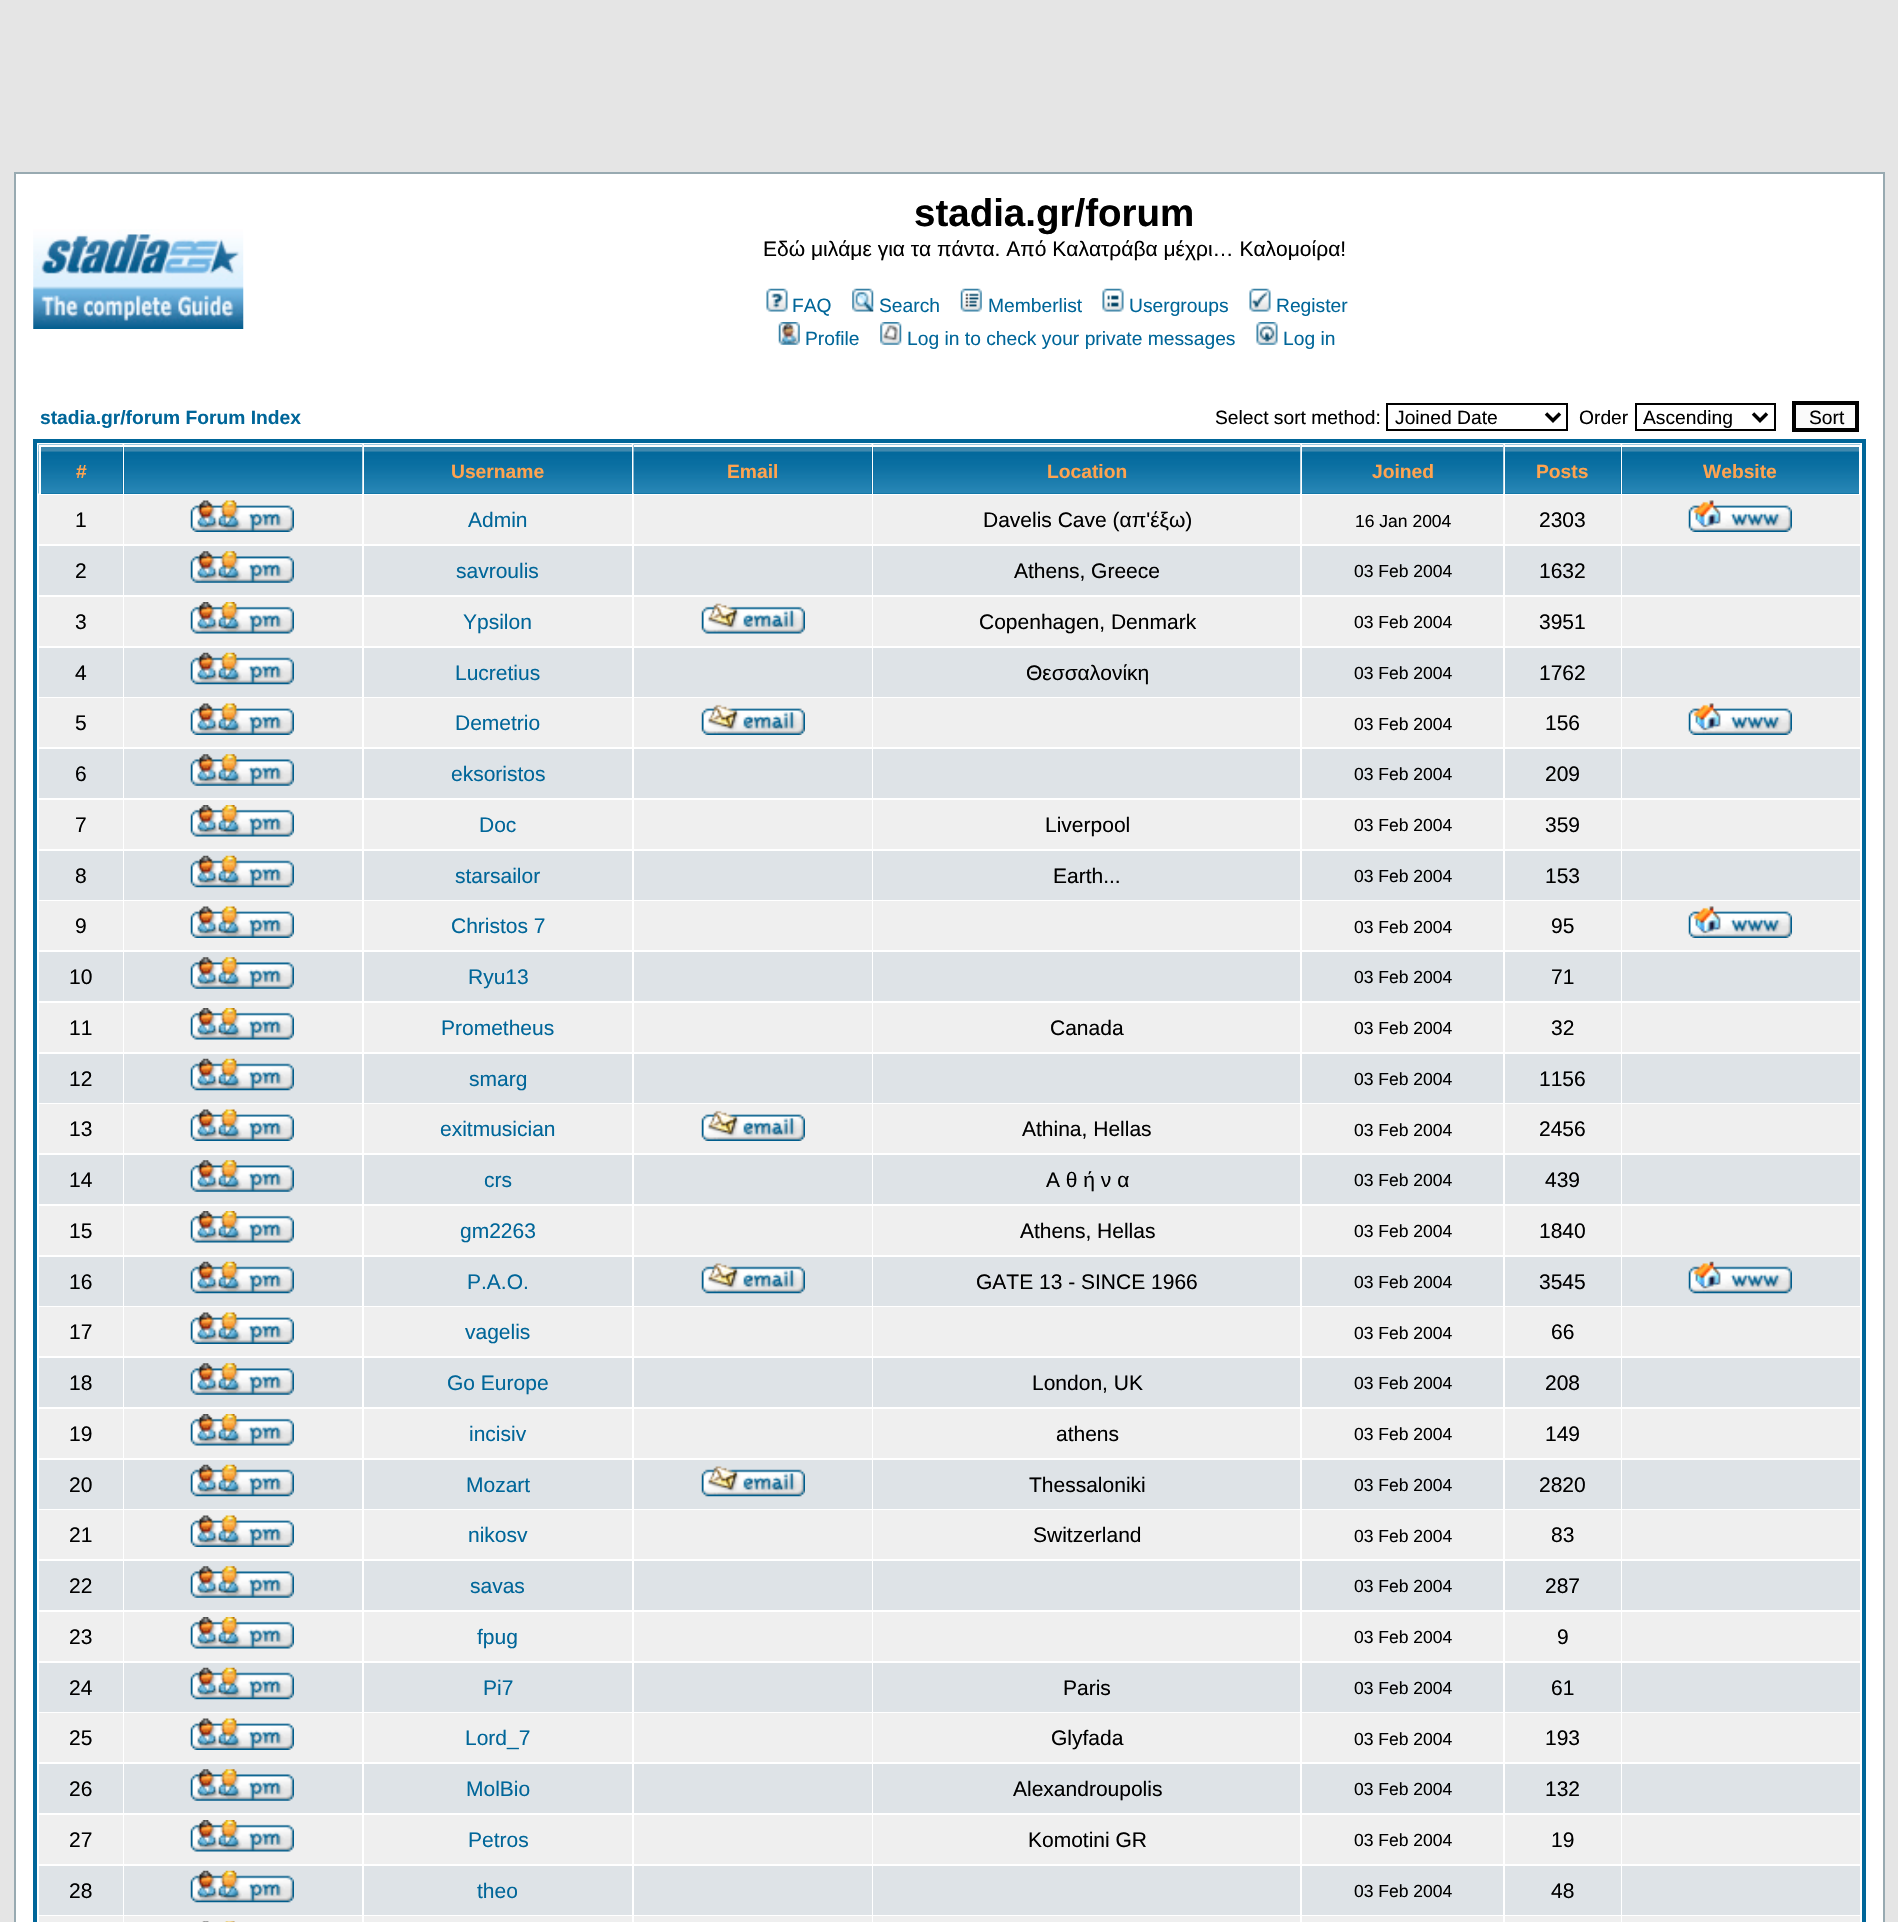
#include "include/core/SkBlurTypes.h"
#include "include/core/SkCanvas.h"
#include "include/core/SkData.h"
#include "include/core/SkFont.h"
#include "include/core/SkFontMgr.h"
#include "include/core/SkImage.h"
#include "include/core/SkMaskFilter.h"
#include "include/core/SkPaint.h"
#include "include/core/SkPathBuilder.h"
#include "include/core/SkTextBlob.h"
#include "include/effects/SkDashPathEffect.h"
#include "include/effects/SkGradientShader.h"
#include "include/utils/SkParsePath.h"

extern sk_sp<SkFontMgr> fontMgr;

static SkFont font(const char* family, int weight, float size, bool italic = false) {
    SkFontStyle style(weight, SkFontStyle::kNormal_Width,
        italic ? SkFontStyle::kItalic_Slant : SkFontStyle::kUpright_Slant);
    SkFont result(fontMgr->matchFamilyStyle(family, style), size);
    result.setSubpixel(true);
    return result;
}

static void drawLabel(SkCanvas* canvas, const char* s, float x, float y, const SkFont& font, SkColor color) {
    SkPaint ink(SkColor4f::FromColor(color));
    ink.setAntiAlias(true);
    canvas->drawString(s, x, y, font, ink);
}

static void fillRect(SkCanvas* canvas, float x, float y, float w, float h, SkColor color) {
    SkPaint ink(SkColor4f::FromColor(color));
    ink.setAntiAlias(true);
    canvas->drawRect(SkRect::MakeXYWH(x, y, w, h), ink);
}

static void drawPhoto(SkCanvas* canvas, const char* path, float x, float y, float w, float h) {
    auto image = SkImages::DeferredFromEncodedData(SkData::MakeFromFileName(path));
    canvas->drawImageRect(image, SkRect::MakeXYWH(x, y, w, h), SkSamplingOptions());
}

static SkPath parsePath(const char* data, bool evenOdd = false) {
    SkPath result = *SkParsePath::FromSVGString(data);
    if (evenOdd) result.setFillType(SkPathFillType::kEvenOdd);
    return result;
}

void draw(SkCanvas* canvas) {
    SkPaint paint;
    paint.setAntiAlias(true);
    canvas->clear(0xFFE5E5E5);
    paint.setColor(0xFFFFFFFF);
    canvas->drawRect(SkRect::MakeXYWH(15, 173, 1869, 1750), paint);
    paint.setStroke(true);
    paint.setStrokeWidth(2);
    paint.setColor(0xFF98AAB1);
    canvas->drawRect(SkRect::MakeXYWH(15, 173, 1869, 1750), paint);
    drawPhoto(canvas, "assets/img1.png", 33, 229, 211, 100);
    SkFont font1 = font("Liberation Sans", 700, 38.5f);
    drawLabel(canvas, "stadia.gr/forum", 914, 226, font1, 0xFF000000);
    SkFont font2 = font("Liberation Sans", 400, 21);
    drawLabel(canvas, "Εδώ μιλάμε για τα πάντα. Από Καλατράβα μέχρι… Καλομοίρα!", 763, 256, font2, 0xFF000000);
    drawPhoto(canvas, "assets/img2.png", 766, 288, 22, 24);
    SkFont font3 = font("Liberation Sans", 400, 19.25f);
    drawLabel(canvas, "FAQ", 792, 312, font3, 0xFF006699);
    drawPhoto(canvas, "assets/img3.png", 852, 288, 22, 24);
    drawLabel(canvas, "Search", 879, 312, font3, 0xFF006699);
    drawPhoto(canvas, "assets/img4.png", 960, 288, 22, 24);
    drawLabel(canvas, "Memberlist", 988, 312, font3, 0xFF006699);
    drawPhoto(canvas, "assets/img5.png", 1102, 288, 22, 24);
    drawLabel(canvas, "Usergroups", 1129, 312, font3, 0xFF006699);
    drawPhoto(canvas, "assets/img6.png", 1249, 288, 22, 24);
    drawLabel(canvas, "Register", 1276, 312, font3, 0xFF006699);
    drawPhoto(canvas, "assets/img7.png", 778, 322, 22, 23);
    drawLabel(canvas, "Profile", 805, 345, font3, 0xFF006699);
    drawPhoto(canvas, "assets/img8.png", 880, 322, 22, 23);
    drawLabel(canvas, "Log in to check your private messages", 907, 345, font3, 0xFF006699);
    drawPhoto(canvas, "assets/img9.png", 1256, 322, 22, 23);
    drawLabel(canvas, "Log in", 1283, 345, font3, 0xFF006699);
    SkFont font4 = font("Liberation Sans", 700, 19.25f);
    drawLabel(canvas, "stadia.gr/forum Forum Index", 40, 424, font4, 0xFF006699);
    drawLabel(canvas, "Select sort method:", 1215, 424, font3, 0xFF000000);
    paint.setColor(0xFF000000);
    canvas->drawRect(SkRect::MakeXYWH(1387, 404, 180, 26), paint);
    paint.setStrokeWidth(3.5f);
    canvas->drawPath(parsePath("M1546 413.5L1553 420.5L1560 413.5"), paint);
    drawLabel(canvas, "Joined Date", 1395, 424, font3, 0xFF000000);
    drawLabel(canvas, "Order", 1579, 424, font3, 0xFF000000);
    paint.setStrokeWidth(2);
    canvas->drawRect(SkRect::MakeXYWH(1636, 404, 139, 26), paint);
    paint.setStrokeWidth(3.5f);
    canvas->drawPath(parsePath("M1753 413.5L1760 420.5L1767 413.5"), paint);
    drawLabel(canvas, "Ascending", 1643, 424, font3, 0xFF000000);
    paint.setStroke(false);
    paint.setColor(0xFFFAFAFA);
    canvas->drawRect(SkRect::MakeXYWH(1794, 403, 63, 27), paint);
    paint.setStroke(true);
    paint.setStrokeWidth(4);
    paint.setColor(0xFF000000);
    canvas->drawRect(SkRect::MakeXYWH(1794, 403, 63, 27), paint);
    drawLabel(canvas, "Sort", 1809, 424, font3, 0xFF000000);
    paint.setColor(0xFF006699);
    canvas->drawRect(SkRect::MakeXYWH(35, 441, 1829, 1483), paint);
    fillRect(canvas, 41, 447, 82, 47, 0xFF006699);
    drawPhoto(canvas, "assets/img10.png", 38, 444, 85, 50);
    fillRect(canvas, 39, 445, 84, 2, 0xFFFFFFFF);
    fillRect(canvas, 39, 445, 2, 49, 0xFFFFFFFF);
    drawLabel(canvas, "#", 76, 478, font4, 0xFFFFA34F);
    fillRect(canvas, 124, 447, 238, 47, 0xFF006699);
    drawPhoto(canvas, "assets/img11.png", 124, 444, 239, 50);
    fillRect(canvas, 124, 445, 238, 2, 0xFFFFFFFF);
    fillRect(canvas, 364, 447, 268, 47, 0xFF006699);
    drawPhoto(canvas, "assets/img12.png", 364, 444, 268, 50);
    fillRect(canvas, 364, 445, 268, 2, 0xFFFFFFFF);
    drawLabel(canvas, "Username", 451, 478, font4, 0xFFFFA34F);
    fillRect(canvas, 634, 447, 238, 47, 0xFF006699);
    drawPhoto(canvas, "assets/img13.png", 633, 444, 239, 50);
    fillRect(canvas, 634, 445, 238, 2, 0xFFFFFFFF);
    drawLabel(canvas, "Email", 727, 478, font4, 0xFFFFA34F);
    fillRect(canvas, 873, 447, 427, 47, 0xFF006699);
    drawPhoto(canvas, "assets/img14.png", 873, 444, 428, 50);
    fillRect(canvas, 873, 445, 427, 2, 0xFFFFFFFF);
    drawLabel(canvas, "Location", 1047, 478, font4, 0xFFFFA34F);
    fillRect(canvas, 1302, 493, 201, 1, 0xFF006699);
    drawPhoto(canvas, "assets/img15.png", 1302, 444, 202, 50);
    fillRect(canvas, 1302, 445, 201, 2, 0xFFFFFFFF);
    drawLabel(canvas, "Joined", 1372, 478, font4, 0xFFFFA34F);
    fillRect(canvas, 1505, 447, 116, 47, 0xFF006699);
    drawPhoto(canvas, "assets/img16.png", 1505, 444, 116, 50);
    fillRect(canvas, 1505, 445, 116, 2, 0xFFFFFFFF);
    drawLabel(canvas, "Posts", 1536, 478, font4, 0xFFFFA34F);
    fillRect(canvas, 1622, 447, 237, 47, 0xFF006699);
    drawPhoto(canvas, "assets/img17.png", 1622, 444, 239, 50);
    fillRect(canvas, 1622, 445, 238, 2, 0xFFFFFFFF);
    fillRect(canvas, 1859, 445, 2, 49, 0xFFFFFFFF);
    drawLabel(canvas, "Website", 1703, 478, font4, 0xFFFFA34F);
    fillRect(canvas, 39, 495, 84, 49, 0xFFEFEFEF);
    drawLabel(canvas, "1", 75, 527, font2, 0xFF000000);
    fillRect(canvas, 124, 495, 238, 49, 0xFFEFEFEF);
    drawPhoto(canvas, "assets/img18.png", 190, 500, 104, 32);
    fillRect(canvas, 364, 495, 268, 49, 0xFFEFEFEF);
    drawLabel(canvas, "Admin", 468, 527, font2, 0xFF006699);
    fillRect(canvas, 634, 495, 238, 49, 0xFFEFEFEF);
    fillRect(canvas, 873, 495, 427, 49, 0xFFEFEFEF);
    drawLabel(canvas, "Davelis Cave (απ'έξω)", 983, 527, font2, 0xFF000000);
    fillRect(canvas, 1302, 495, 201, 49, 0xFFEFEFEF);
    SkFont font5 = font("Liberation Sans", 400, 17.5f);
    drawLabel(canvas, "16 Jan 2004", 1355, 527, font5, 0xFF000000);
    fillRect(canvas, 1505, 495, 116, 49, 0xFFEFEFEF);
    drawLabel(canvas, "2303", 1539, 527, font2, 0xFF000000);
    fillRect(canvas, 1622, 495, 238, 49, 0xFFEFEFEF);
    drawPhoto(canvas, "assets/img19.png", 1688, 500, 104, 32);
    fillRect(canvas, 39, 546, 84, 49, 0xFFDEE3E7);
    drawLabel(canvas, "2", 75, 578, font2, 0xFF000000);
    fillRect(canvas, 124, 546, 238, 49, 0xFFDEE3E7);
    drawPhoto(canvas, "assets/img20.png", 190, 551, 104, 32);
    fillRect(canvas, 364, 546, 268, 49, 0xFFDEE3E7);
    drawLabel(canvas, "savroulis", 456, 578, font2, 0xFF006699);
    fillRect(canvas, 634, 546, 238, 49, 0xFFDEE3E7);
    fillRect(canvas, 873, 546, 427, 49, 0xFFDEE3E7);
    drawLabel(canvas, "Athens, Greece", 1014, 578, font2, 0xFF000000);
    fillRect(canvas, 1302, 546, 201, 49, 0xFFDEE3E7);
    drawLabel(canvas, "03 Feb 2004", 1354, 577, font5, 0xFF000000);
    fillRect(canvas, 1505, 546, 116, 49, 0xFFDEE3E7);
    drawLabel(canvas, "1632", 1539, 578, font2, 0xFF000000);
    fillRect(canvas, 1622, 546, 238, 49, 0xFFDEE3E7);
    fillRect(canvas, 39, 597, 84, 49, 0xFFEFEFEF);
    drawLabel(canvas, "3", 75, 629, font2, 0xFF000000);
    fillRect(canvas, 124, 597, 238, 49, 0xFFEFEFEF);
    drawPhoto(canvas, "assets/img21.png", 190, 602, 104, 32);
    fillRect(canvas, 364, 597, 268, 49, 0xFFEFEFEF);
    drawLabel(canvas, "Ypsilon", 463, 629, font2, 0xFF006699);
    fillRect(canvas, 634, 597, 238, 49, 0xFFEFEFEF);
    drawPhoto(canvas, "assets/img22.png", 701, 603, 104, 31);
    fillRect(canvas, 873, 597, 427, 49, 0xFFEFEFEF);
    drawLabel(canvas, "Copenhagen, Denmark", 979, 629, font2, 0xFF000000);
    fillRect(canvas, 1302, 597, 201, 49, 0xFFEFEFEF);
    drawLabel(canvas, "03 Feb 2004", 1354, 628, font5, 0xFF000000);
    fillRect(canvas, 1505, 597, 116, 49, 0xFFEFEFEF);
    drawLabel(canvas, "3951", 1539, 629, font2, 0xFF000000);
    fillRect(canvas, 1622, 597, 238, 49, 0xFFEFEFEF);
    fillRect(canvas, 39, 648, 84, 49, 0xFFDEE3E7);
    drawLabel(canvas, "4", 75, 680, font2, 0xFF000000);
    fillRect(canvas, 124, 648, 238, 49, 0xFFDEE3E7);
    drawPhoto(canvas, "assets/img23.png", 190, 652, 104, 33);
    fillRect(canvas, 364, 648, 268, 49, 0xFFDEE3E7);
    drawLabel(canvas, "Lucretius", 455, 680, font2, 0xFF006699);
    fillRect(canvas, 634, 648, 238, 49, 0xFFDEE3E7);
    fillRect(canvas, 873, 648, 427, 49, 0xFFDEE3E7);
    drawLabel(canvas, "Θεσσαλονίκη", 1026, 680, font2, 0xFF000000);
    fillRect(canvas, 1302, 648, 201, 49, 0xFFDEE3E7);
    drawLabel(canvas, "03 Feb 2004", 1354, 679, font5, 0xFF000000);
    fillRect(canvas, 1505, 648, 116, 49, 0xFFDEE3E7);
    drawLabel(canvas, "1762", 1539, 680, font2, 0xFF000000);
    fillRect(canvas, 1622, 648, 238, 49, 0xFFDEE3E7);
    fillRect(canvas, 39, 698, 84, 49, 0xFFEFEFEF);
    drawLabel(canvas, "5", 75, 730, font2, 0xFF000000);
    fillRect(canvas, 124, 698, 238, 49, 0xFFEFEFEF);
    drawPhoto(canvas, "assets/img18.png", 190, 703, 104, 32);
    fillRect(canvas, 364, 698, 268, 49, 0xFFEFEFEF);
    drawLabel(canvas, "Demetrio", 455, 730, font2, 0xFF006699);
    fillRect(canvas, 634, 698, 238, 49, 0xFFEFEFEF);
    drawPhoto(canvas, "assets/img24.png", 701, 704, 104, 31);
    fillRect(canvas, 873, 698, 427, 49, 0xFFEFEFEF);
    fillRect(canvas, 1302, 698, 201, 49, 0xFFEFEFEF);
    drawLabel(canvas, "03 Feb 2004", 1354, 730, font5, 0xFF000000);
    fillRect(canvas, 1505, 698, 116, 49, 0xFFEFEFEF);
    drawLabel(canvas, "156", 1545, 730, font2, 0xFF000000);
    fillRect(canvas, 1622, 698, 238, 49, 0xFFEFEFEF);
    drawPhoto(canvas, "assets/img19.png", 1688, 703, 104, 32);
    fillRect(canvas, 39, 749, 84, 49, 0xFFDEE3E7);
    drawLabel(canvas, "6", 75, 781, font2, 0xFF000000);
    fillRect(canvas, 124, 749, 238, 49, 0xFFDEE3E7);
    drawPhoto(canvas, "assets/img20.png", 190, 754, 104, 32);
    fillRect(canvas, 364, 749, 268, 49, 0xFFDEE3E7);
    drawLabel(canvas, "eksoristos", 451, 781, font2, 0xFF006699);
    fillRect(canvas, 634, 749, 238, 49, 0xFFDEE3E7);
    fillRect(canvas, 873, 749, 427, 49, 0xFFDEE3E7);
    fillRect(canvas, 1302, 749, 201, 49, 0xFFDEE3E7);
    drawLabel(canvas, "03 Feb 2004", 1354, 780, font5, 0xFF000000);
    fillRect(canvas, 1505, 749, 116, 49, 0xFFDEE3E7);
    drawLabel(canvas, "209", 1545, 781, font2, 0xFF000000);
    fillRect(canvas, 1622, 749, 238, 49, 0xFFDEE3E7);
    fillRect(canvas, 39, 800, 84, 49, 0xFFEFEFEF);
    drawLabel(canvas, "7", 75, 832, font2, 0xFF000000);
    fillRect(canvas, 124, 800, 238, 49, 0xFFEFEFEF);
    drawPhoto(canvas, "assets/img21.png", 190, 805, 104, 32);
    fillRect(canvas, 364, 800, 268, 49, 0xFFEFEFEF);
    drawLabel(canvas, "Doc", 479, 832, font2, 0xFF006699);
    fillRect(canvas, 634, 800, 238, 49, 0xFFEFEFEF);
    fillRect(canvas, 873, 800, 427, 49, 0xFFEFEFEF);
    drawLabel(canvas, "Liverpool", 1045, 832, font2, 0xFF000000);
    fillRect(canvas, 1302, 800, 201, 49, 0xFFEFEFEF);
    drawLabel(canvas, "03 Feb 2004", 1354, 831, font5, 0xFF000000);
    fillRect(canvas, 1505, 800, 116, 49, 0xFFEFEFEF);
    drawLabel(canvas, "359", 1545, 832, font2, 0xFF000000);
    fillRect(canvas, 1622, 800, 238, 49, 0xFFEFEFEF);
    fillRect(canvas, 39, 851, 84, 49, 0xFFDEE3E7);
    drawLabel(canvas, "8", 75, 883, font2, 0xFF000000);
    fillRect(canvas, 124, 851, 238, 49, 0xFFDEE3E7);
    drawPhoto(canvas, "assets/img23.png", 190, 855, 104, 33);
    fillRect(canvas, 364, 851, 268, 49, 0xFFDEE3E7);
    drawLabel(canvas, "starsailor", 455, 883, font2, 0xFF006699);
    fillRect(canvas, 634, 851, 238, 49, 0xFFDEE3E7);
    fillRect(canvas, 873, 851, 427, 49, 0xFFDEE3E7);
    drawLabel(canvas, "Earth...", 1053, 883, font2, 0xFF000000);
    fillRect(canvas, 1302, 851, 201, 49, 0xFFDEE3E7);
    drawLabel(canvas, "03 Feb 2004", 1354, 882, font5, 0xFF000000);
    fillRect(canvas, 1505, 851, 116, 49, 0xFFDEE3E7);
    drawLabel(canvas, "153", 1545, 883, font2, 0xFF000000);
    fillRect(canvas, 1622, 851, 238, 49, 0xFFDEE3E7);
    fillRect(canvas, 39, 901, 84, 49, 0xFFEFEFEF);
    drawLabel(canvas, "9", 75, 933, font2, 0xFF000000);
    fillRect(canvas, 124, 901, 238, 49, 0xFFEFEFEF);
    drawPhoto(canvas, "assets/img18.png", 190, 906, 104, 32);
    fillRect(canvas, 364, 901, 268, 49, 0xFFEFEFEF);
    drawLabel(canvas, "Christos 7", 451, 933, font2, 0xFF006699);
    fillRect(canvas, 634, 901, 238, 49, 0xFFEFEFEF);
    fillRect(canvas, 873, 901, 427, 49, 0xFFEFEFEF);
    fillRect(canvas, 1302, 901, 201, 49, 0xFFEFEFEF);
    drawLabel(canvas, "03 Feb 2004", 1354, 933, font5, 0xFF000000);
    fillRect(canvas, 1505, 901, 116, 49, 0xFFEFEFEF);
    drawLabel(canvas, "95", 1551, 933, font2, 0xFF000000);
    fillRect(canvas, 1622, 901, 238, 49, 0xFFEFEFEF);
    drawPhoto(canvas, "assets/img19.png", 1688, 906, 104, 32);
    fillRect(canvas, 39, 952, 84, 49, 0xFFDEE3E7);
    drawLabel(canvas, "10", 69, 984, font2, 0xFF000000);
    fillRect(canvas, 124, 952, 238, 49, 0xFFDEE3E7);
    drawPhoto(canvas, "assets/img20.png", 190, 957, 104, 32);
    fillRect(canvas, 364, 952, 268, 49, 0xFFDEE3E7);
    drawLabel(canvas, "Ryu13", 468, 984, font2, 0xFF006699);
    fillRect(canvas, 634, 952, 238, 49, 0xFFDEE3E7);
    fillRect(canvas, 873, 952, 427, 49, 0xFFDEE3E7);
    fillRect(canvas, 1302, 952, 201, 49, 0xFFDEE3E7);
    drawLabel(canvas, "03 Feb 2004", 1354, 983, font5, 0xFF000000);
    fillRect(canvas, 1505, 952, 116, 49, 0xFFDEE3E7);
    drawLabel(canvas, "71", 1551, 984, font2, 0xFF000000);
    fillRect(canvas, 1622, 952, 238, 49, 0xFFDEE3E7);
    fillRect(canvas, 39, 1003, 84, 49, 0xFFEFEFEF);
    drawLabel(canvas, "11", 69, 1035, font2, 0xFF000000);
    fillRect(canvas, 124, 1003, 238, 49, 0xFFEFEFEF);
    drawPhoto(canvas, "assets/img21.png", 190, 1008, 104, 32);
    fillRect(canvas, 364, 1003, 268, 49, 0xFFEFEFEF);
    drawLabel(canvas, "Prometheus", 441, 1035, font2, 0xFF006699);
    fillRect(canvas, 634, 1003, 238, 49, 0xFFEFEFEF);
    fillRect(canvas, 873, 1003, 427, 49, 0xFFEFEFEF);
    drawLabel(canvas, "Canada", 1050, 1035, font2, 0xFF000000);
    fillRect(canvas, 1302, 1003, 201, 49, 0xFFEFEFEF);
    drawLabel(canvas, "03 Feb 2004", 1354, 1034, font5, 0xFF000000);
    fillRect(canvas, 1505, 1003, 116, 49, 0xFFEFEFEF);
    drawLabel(canvas, "32", 1551, 1035, font2, 0xFF000000);
    fillRect(canvas, 1622, 1003, 238, 49, 0xFFEFEFEF);
    fillRect(canvas, 39, 1054, 84, 49, 0xFFDEE3E7);
    drawLabel(canvas, "12", 69, 1086, font2, 0xFF000000);
    fillRect(canvas, 124, 1054, 238, 49, 0xFFDEE3E7);
    drawPhoto(canvas, "assets/img23.png", 190, 1058, 104, 33);
    fillRect(canvas, 364, 1054, 268, 49, 0xFFDEE3E7);
    drawLabel(canvas, "smarg", 469, 1086, font2, 0xFF006699);
    fillRect(canvas, 634, 1054, 238, 49, 0xFFDEE3E7);
    fillRect(canvas, 873, 1054, 427, 49, 0xFFDEE3E7);
    fillRect(canvas, 1302, 1054, 201, 49, 0xFFDEE3E7);
    drawLabel(canvas, "03 Feb 2004", 1354, 1085, font5, 0xFF000000);
    fillRect(canvas, 1505, 1054, 116, 49, 0xFFDEE3E7);
    drawLabel(canvas, "1156", 1539, 1086, font2, 0xFF000000);
    fillRect(canvas, 1622, 1054, 238, 49, 0xFFDEE3E7);
    fillRect(canvas, 39, 1104, 84, 49, 0xFFEFEFEF);
    drawLabel(canvas, "13", 69, 1136, font2, 0xFF000000);
    fillRect(canvas, 124, 1104, 238, 49, 0xFFEFEFEF);
    drawPhoto(canvas, "assets/img18.png", 190, 1109, 104, 32);
    fillRect(canvas, 364, 1104, 268, 49, 0xFFEFEFEF);
    drawLabel(canvas, "exitmusician", 440, 1136, font2, 0xFF006699);
    fillRect(canvas, 634, 1104, 238, 49, 0xFFEFEFEF);
    drawPhoto(canvas, "assets/img24.png", 701, 1110, 104, 31);
    fillRect(canvas, 873, 1104, 427, 49, 0xFFEFEFEF);
    drawLabel(canvas, "Athina, Hellas", 1022, 1136, font2, 0xFF000000);
    fillRect(canvas, 1302, 1104, 201, 49, 0xFFEFEFEF);
    drawLabel(canvas, "03 Feb 2004", 1354, 1136, font5, 0xFF000000);
    fillRect(canvas, 1505, 1104, 116, 49, 0xFFEFEFEF);
    drawLabel(canvas, "2456", 1539, 1136, font2, 0xFF000000);
    fillRect(canvas, 1622, 1104, 238, 49, 0xFFEFEFEF);
    fillRect(canvas, 39, 1155, 84, 49, 0xFFDEE3E7);
    drawLabel(canvas, "14", 69, 1187, font2, 0xFF000000);
    fillRect(canvas, 124, 1155, 238, 49, 0xFFDEE3E7);
    drawPhoto(canvas, "assets/img20.png", 190, 1160, 104, 32);
    fillRect(canvas, 364, 1155, 268, 49, 0xFFDEE3E7);
    drawLabel(canvas, "crs", 484, 1187, font2, 0xFF006699);
    fillRect(canvas, 634, 1155, 238, 49, 0xFFDEE3E7);
    fillRect(canvas, 873, 1155, 427, 49, 0xFFDEE3E7);
    drawLabel(canvas, "A θ ή ν α", 1046, 1187, font2, 0xFF000000);
    fillRect(canvas, 1302, 1155, 201, 49, 0xFFDEE3E7);
    drawLabel(canvas, "03 Feb 2004", 1354, 1186, font5, 0xFF000000);
    fillRect(canvas, 1505, 1155, 116, 49, 0xFFDEE3E7);
    drawLabel(canvas, "439", 1545, 1187, font2, 0xFF000000);
    fillRect(canvas, 1622, 1155, 238, 49, 0xFFDEE3E7);
    fillRect(canvas, 39, 1206, 84, 49, 0xFFEFEFEF);
    drawLabel(canvas, "15", 69, 1238, font2, 0xFF000000);
    fillRect(canvas, 124, 1206, 238, 49, 0xFFEFEFEF);
    drawPhoto(canvas, "assets/img21.png", 190, 1211, 104, 32);
    fillRect(canvas, 364, 1206, 268, 49, 0xFFEFEFEF);
    drawLabel(canvas, "gm2263", 460, 1238, font2, 0xFF006699);
    fillRect(canvas, 634, 1206, 238, 49, 0xFFEFEFEF);
    fillRect(canvas, 873, 1206, 427, 49, 0xFFEFEFEF);
    drawLabel(canvas, "Athens, Hellas", 1020, 1238, font2, 0xFF000000);
    fillRect(canvas, 1302, 1206, 201, 49, 0xFFEFEFEF);
    drawLabel(canvas, "03 Feb 2004", 1354, 1237, font5, 0xFF000000);
    fillRect(canvas, 1505, 1206, 116, 49, 0xFFEFEFEF);
    drawLabel(canvas, "1840", 1539, 1238, font2, 0xFF000000);
    fillRect(canvas, 1622, 1206, 238, 49, 0xFFEFEFEF);
    fillRect(canvas, 39, 1257, 84, 49, 0xFFDEE3E7);
    drawLabel(canvas, "16", 69, 1289, font2, 0xFF000000);
    fillRect(canvas, 124, 1257, 238, 49, 0xFFDEE3E7);
    drawPhoto(canvas, "assets/img23.png", 190, 1261, 104, 33);
    fillRect(canvas, 364, 1257, 268, 49, 0xFFDEE3E7);
    drawLabel(canvas, "P.A.O.", 467, 1289, font2, 0xFF006699);
    fillRect(canvas, 634, 1257, 238, 49, 0xFFDEE3E7);
    drawPhoto(canvas, "assets/img25.png", 701, 1263, 104, 31);
    fillRect(canvas, 873, 1257, 427, 49, 0xFFDEE3E7);
    drawLabel(canvas, "GATE 13 - SINCE 1966", 976, 1289, font2, 0xFF000000);
    fillRect(canvas, 1302, 1257, 201, 49, 0xFFDEE3E7);
    drawLabel(canvas, "03 Feb 2004", 1354, 1288, font5, 0xFF000000);
    fillRect(canvas, 1505, 1257, 116, 49, 0xFFDEE3E7);
    drawLabel(canvas, "3545", 1539, 1289, font2, 0xFF000000);
    fillRect(canvas, 1622, 1257, 238, 49, 0xFFDEE3E7);
    drawPhoto(canvas, "assets/img26.png", 1688, 1261, 104, 33);
    fillRect(canvas, 39, 1307, 84, 49, 0xFFEFEFEF);
    drawLabel(canvas, "17", 69, 1339, font2, 0xFF000000);
    fillRect(canvas, 124, 1307, 238, 49, 0xFFEFEFEF);
    drawPhoto(canvas, "assets/img18.png", 190, 1312, 104, 32);
    fillRect(canvas, 364, 1307, 268, 49, 0xFFEFEFEF);
    drawLabel(canvas, "vagelis", 465, 1339, font2, 0xFF006699);
    fillRect(canvas, 634, 1307, 238, 49, 0xFFEFEFEF);
    fillRect(canvas, 873, 1307, 427, 49, 0xFFEFEFEF);
    fillRect(canvas, 1302, 1307, 201, 49, 0xFFEFEFEF);
    drawLabel(canvas, "03 Feb 2004", 1354, 1339, font5, 0xFF000000);
    fillRect(canvas, 1505, 1307, 116, 49, 0xFFEFEFEF);
    drawLabel(canvas, "66", 1551, 1339, font2, 0xFF000000);
    fillRect(canvas, 1622, 1307, 238, 49, 0xFFEFEFEF);
    fillRect(canvas, 39, 1358, 84, 49, 0xFFDEE3E7);
    drawLabel(canvas, "18", 69, 1390, font2, 0xFF000000);
    fillRect(canvas, 124, 1358, 238, 49, 0xFFDEE3E7);
    drawPhoto(canvas, "assets/img20.png", 190, 1363, 104, 32);
    fillRect(canvas, 364, 1358, 268, 49, 0xFFDEE3E7);
    drawLabel(canvas, "Go Europe", 447, 1390, font2, 0xFF006699);
    fillRect(canvas, 634, 1358, 238, 49, 0xFFDEE3E7);
    fillRect(canvas, 873, 1358, 427, 49, 0xFFDEE3E7);
    drawLabel(canvas, "London, UK", 1032, 1390, font2, 0xFF000000);
    fillRect(canvas, 1302, 1358, 201, 49, 0xFFDEE3E7);
    drawLabel(canvas, "03 Feb 2004", 1354, 1389, font5, 0xFF000000);
    fillRect(canvas, 1505, 1358, 116, 49, 0xFFDEE3E7);
    drawLabel(canvas, "208", 1545, 1390, font2, 0xFF000000);
    fillRect(canvas, 1622, 1358, 238, 49, 0xFFDEE3E7);
    fillRect(canvas, 39, 1409, 84, 49, 0xFFEFEFEF);
    drawLabel(canvas, "19", 69, 1441, font2, 0xFF000000);
    fillRect(canvas, 124, 1409, 238, 49, 0xFFEFEFEF);
    drawPhoto(canvas, "assets/img21.png", 190, 1414, 104, 32);
    fillRect(canvas, 364, 1409, 268, 49, 0xFFEFEFEF);
    drawLabel(canvas, "incisiv", 469, 1441, font2, 0xFF006699);
    fillRect(canvas, 634, 1409, 238, 49, 0xFFEFEFEF);
    fillRect(canvas, 873, 1409, 427, 49, 0xFFEFEFEF);
    drawLabel(canvas, "athens", 1056, 1441, font2, 0xFF000000);
    fillRect(canvas, 1302, 1409, 201, 49, 0xFFEFEFEF);
    drawLabel(canvas, "03 Feb 2004", 1354, 1440, font5, 0xFF000000);
    fillRect(canvas, 1505, 1409, 116, 49, 0xFFEFEFEF);
    drawLabel(canvas, "149", 1545, 1441, font2, 0xFF000000);
    fillRect(canvas, 1622, 1409, 238, 49, 0xFFEFEFEF);
    fillRect(canvas, 39, 1460, 84, 49, 0xFFDEE3E7);
    drawLabel(canvas, "20", 69, 1492, font2, 0xFF000000);
    fillRect(canvas, 124, 1460, 238, 49, 0xFFDEE3E7);
    drawPhoto(canvas, "assets/img23.png", 190, 1464, 104, 33);
    fillRect(canvas, 364, 1460, 268, 49, 0xFFDEE3E7);
    drawLabel(canvas, "Mozart", 466, 1492, font2, 0xFF006699);
    fillRect(canvas, 634, 1460, 238, 49, 0xFFDEE3E7);
    drawPhoto(canvas, "assets/img25.png", 701, 1466, 104, 31);
    fillRect(canvas, 873, 1460, 427, 49, 0xFFDEE3E7);
    drawLabel(canvas, "Thessaloniki", 1029, 1492, font2, 0xFF000000);
    fillRect(canvas, 1302, 1460, 201, 49, 0xFFDEE3E7);
    drawLabel(canvas, "03 Feb 2004", 1354, 1491, font5, 0xFF000000);
    fillRect(canvas, 1505, 1460, 116, 49, 0xFFDEE3E7);
    drawLabel(canvas, "2820", 1539, 1492, font2, 0xFF000000);
    fillRect(canvas, 1622, 1460, 238, 49, 0xFFDEE3E7);
    fillRect(canvas, 39, 1510, 84, 49, 0xFFEFEFEF);
    drawLabel(canvas, "21", 69, 1542, font2, 0xFF000000);
    fillRect(canvas, 124, 1510, 238, 49, 0xFFEFEFEF);
    drawPhoto(canvas, "assets/img18.png", 190, 1515, 104, 32);
    fillRect(canvas, 364, 1510, 268, 49, 0xFFEFEFEF);
    drawLabel(canvas, "nikosv", 468, 1542, font2, 0xFF006699);
    fillRect(canvas, 634, 1510, 238, 49, 0xFFEFEFEF);
    fillRect(canvas, 873, 1510, 427, 49, 0xFFEFEFEF);
    drawLabel(canvas, "Switzerland", 1033, 1542, font2, 0xFF000000);
    fillRect(canvas, 1302, 1510, 201, 49, 0xFFEFEFEF);
    drawLabel(canvas, "03 Feb 2004", 1354, 1542, font5, 0xFF000000);
    fillRect(canvas, 1505, 1510, 116, 49, 0xFFEFEFEF);
    drawLabel(canvas, "83", 1551, 1542, font2, 0xFF000000);
    fillRect(canvas, 1622, 1510, 238, 49, 0xFFEFEFEF);
    fillRect(canvas, 39, 1561, 84, 49, 0xFFDEE3E7);
    drawLabel(canvas, "22", 69, 1593, font2, 0xFF000000);
    fillRect(canvas, 124, 1561, 238, 49, 0xFFDEE3E7);
    drawPhoto(canvas, "assets/img20.png", 190, 1566, 104, 32);
    fillRect(canvas, 364, 1561, 268, 49, 0xFFDEE3E7);
    drawLabel(canvas, "savas", 470, 1593, font2, 0xFF006699);
    fillRect(canvas, 634, 1561, 238, 49, 0xFFDEE3E7);
    fillRect(canvas, 873, 1561, 427, 49, 0xFFDEE3E7);
    fillRect(canvas, 1302, 1561, 201, 49, 0xFFDEE3E7);
    drawLabel(canvas, "03 Feb 2004", 1354, 1592, font5, 0xFF000000);
    fillRect(canvas, 1505, 1561, 116, 49, 0xFFDEE3E7);
    drawLabel(canvas, "287", 1545, 1593, font2, 0xFF000000);
    fillRect(canvas, 1622, 1561, 238, 49, 0xFFDEE3E7);
    fillRect(canvas, 39, 1612, 84, 49, 0xFFEFEFEF);
    drawLabel(canvas, "23", 69, 1644, font2, 0xFF000000);
    fillRect(canvas, 124, 1612, 238, 49, 0xFFEFEFEF);
    drawPhoto(canvas, "assets/img21.png", 190, 1617, 104, 32);
    fillRect(canvas, 364, 1612, 268, 49, 0xFFEFEFEF);
    drawLabel(canvas, "fpug", 477, 1644, font2, 0xFF006699);
    fillRect(canvas, 634, 1612, 238, 49, 0xFFEFEFEF);
    fillRect(canvas, 873, 1612, 427, 49, 0xFFEFEFEF);
    fillRect(canvas, 1302, 1612, 201, 49, 0xFFEFEFEF);
    drawLabel(canvas, "03 Feb 2004", 1354, 1643, font5, 0xFF000000);
    fillRect(canvas, 1505, 1612, 116, 49, 0xFFEFEFEF);
    drawLabel(canvas, "9", 1557, 1644, font2, 0xFF000000);
    fillRect(canvas, 1622, 1612, 238, 49, 0xFFEFEFEF);
    fillRect(canvas, 39, 1663, 84, 49, 0xFFDEE3E7);
    drawLabel(canvas, "24", 69, 1695, font2, 0xFF000000);
    fillRect(canvas, 124, 1663, 238, 49, 0xFFDEE3E7);
    drawPhoto(canvas, "assets/img23.png", 190, 1667, 104, 33);
    fillRect(canvas, 364, 1663, 268, 49, 0xFFDEE3E7);
    drawLabel(canvas, "Pi7", 483, 1695, font2, 0xFF006699);
    fillRect(canvas, 634, 1663, 238, 49, 0xFFDEE3E7);
    fillRect(canvas, 873, 1663, 427, 49, 0xFFDEE3E7);
    drawLabel(canvas, "Paris", 1063, 1695, font2, 0xFF000000);
    fillRect(canvas, 1302, 1663, 201, 49, 0xFFDEE3E7);
    drawLabel(canvas, "03 Feb 2004", 1354, 1694, font5, 0xFF000000);
    fillRect(canvas, 1505, 1663, 116, 49, 0xFFDEE3E7);
    drawLabel(canvas, "61", 1551, 1695, font2, 0xFF000000);
    fillRect(canvas, 1622, 1663, 238, 49, 0xFFDEE3E7);
    fillRect(canvas, 39, 1713, 84, 49, 0xFFEFEFEF);
    drawLabel(canvas, "25", 69, 1745, font2, 0xFF000000);
    fillRect(canvas, 124, 1713, 238, 49, 0xFFEFEFEF);
    drawPhoto(canvas, "assets/img18.png", 190, 1718, 104, 32);
    fillRect(canvas, 364, 1713, 268, 49, 0xFFEFEFEF);
    drawLabel(canvas, "Lord_7", 465, 1745, font2, 0xFF006699);
    fillRect(canvas, 634, 1713, 238, 49, 0xFFEFEFEF);
    fillRect(canvas, 873, 1713, 427, 49, 0xFFEFEFEF);
    drawLabel(canvas, "Glyfada", 1051, 1745, font2, 0xFF000000);
    fillRect(canvas, 1302, 1713, 201, 49, 0xFFEFEFEF);
    drawLabel(canvas, "03 Feb 2004", 1354, 1745, font5, 0xFF000000);
    fillRect(canvas, 1505, 1713, 116, 49, 0xFFEFEFEF);
    drawLabel(canvas, "193", 1545, 1745, font2, 0xFF000000);
    fillRect(canvas, 1622, 1713, 238, 49, 0xFFEFEFEF);
    fillRect(canvas, 39, 1764, 84, 49, 0xFFDEE3E7);
    drawLabel(canvas, "26", 69, 1796, font2, 0xFF000000);
    fillRect(canvas, 124, 1764, 238, 49, 0xFFDEE3E7);
    drawPhoto(canvas, "assets/img20.png", 190, 1769, 104, 32);
    fillRect(canvas, 364, 1764, 268, 49, 0xFFDEE3E7);
    drawLabel(canvas, "MolBio", 466, 1796, font2, 0xFF006699);
    fillRect(canvas, 634, 1764, 238, 49, 0xFFDEE3E7);
    fillRect(canvas, 873, 1764, 427, 49, 0xFFDEE3E7);
    drawLabel(canvas, "Alexandroupolis", 1013, 1796, font2, 0xFF000000);
    fillRect(canvas, 1302, 1764, 201, 49, 0xFFDEE3E7);
    drawLabel(canvas, "03 Feb 2004", 1354, 1795, font5, 0xFF000000);
    fillRect(canvas, 1505, 1764, 116, 49, 0xFFDEE3E7);
    drawLabel(canvas, "132", 1545, 1796, font2, 0xFF000000);
    fillRect(canvas, 1622, 1764, 238, 49, 0xFFDEE3E7);
    fillRect(canvas, 39, 1815, 84, 49, 0xFFEFEFEF);
    drawLabel(canvas, "27", 69, 1847, font2, 0xFF000000);
    fillRect(canvas, 124, 1815, 238, 49, 0xFFEFEFEF);
    drawPhoto(canvas, "assets/img27.png", 190, 1820, 104, 32);
    fillRect(canvas, 364, 1815, 268, 49, 0xFFEFEFEF);
    drawLabel(canvas, "Petros", 468, 1847, font2, 0xFF006699);
    fillRect(canvas, 634, 1815, 238, 49, 0xFFEFEFEF);
    fillRect(canvas, 873, 1815, 427, 49, 0xFFEFEFEF);
    drawLabel(canvas, "Komotini GR", 1028, 1847, font2, 0xFF000000);
    fillRect(canvas, 1302, 1815, 201, 49, 0xFFEFEFEF);
    drawLabel(canvas, "03 Feb 2004", 1354, 1846, font5, 0xFF000000);
    fillRect(canvas, 1505, 1815, 116, 49, 0xFFEFEFEF);
    drawLabel(canvas, "19", 1551, 1847, font2, 0xFF000000);
    fillRect(canvas, 1622, 1815, 238, 49, 0xFFEFEFEF);
    fillRect(canvas, 39, 1866, 84, 49, 0xFFDEE3E7);
    drawLabel(canvas, "28", 69, 1898, font2, 0xFF000000);
    fillRect(canvas, 124, 1866, 238, 49, 0xFFDEE3E7);
    drawPhoto(canvas, "assets/img28.png", 190, 1870, 104, 33);
    fillRect(canvas, 364, 1866, 268, 49, 0xFFDEE3E7);
    drawLabel(canvas, "theo", 477, 1898, font2, 0xFF006699);
    fillRect(canvas, 634, 1866, 238, 49, 0xFFDEE3E7);
    fillRect(canvas, 873, 1866, 427, 49, 0xFFDEE3E7);
    fillRect(canvas, 1302, 1866, 201, 49, 0xFFDEE3E7);
    drawLabel(canvas, "03 Feb 2004", 1354, 1897, font5, 0xFF000000);
    fillRect(canvas, 1505, 1866, 116, 49, 0xFFDEE3E7);
    drawLabel(canvas, "48", 1551, 1898, font2, 0xFF000000);
    fillRect(canvas, 1622, 1866, 238, 49, 0xFFDEE3E7);
    fillRect(canvas, 39, 1916, 84, 6, 0xFFEFEFEF);
    fillRect(canvas, 124, 1916, 238, 6, 0xFFEFEFEF);
    drawPhoto(canvas, "assets/img29.png", 202, 1921, 33, 1);
    fillRect(canvas, 364, 1916, 268, 6, 0xFFEFEFEF);
    fillRect(canvas, 634, 1916, 238, 6, 0xFFEFEFEF);
    fillRect(canvas, 873, 1916, 427, 6, 0xFFEFEFEF);
    fillRect(canvas, 1302, 1916, 201, 6, 0xFFEFEFEF);
    fillRect(canvas, 1505, 1916, 116, 6, 0xFFEFEFEF);
    fillRect(canvas, 1622, 1916, 238, 6, 0xFFEFEFEF);
}
